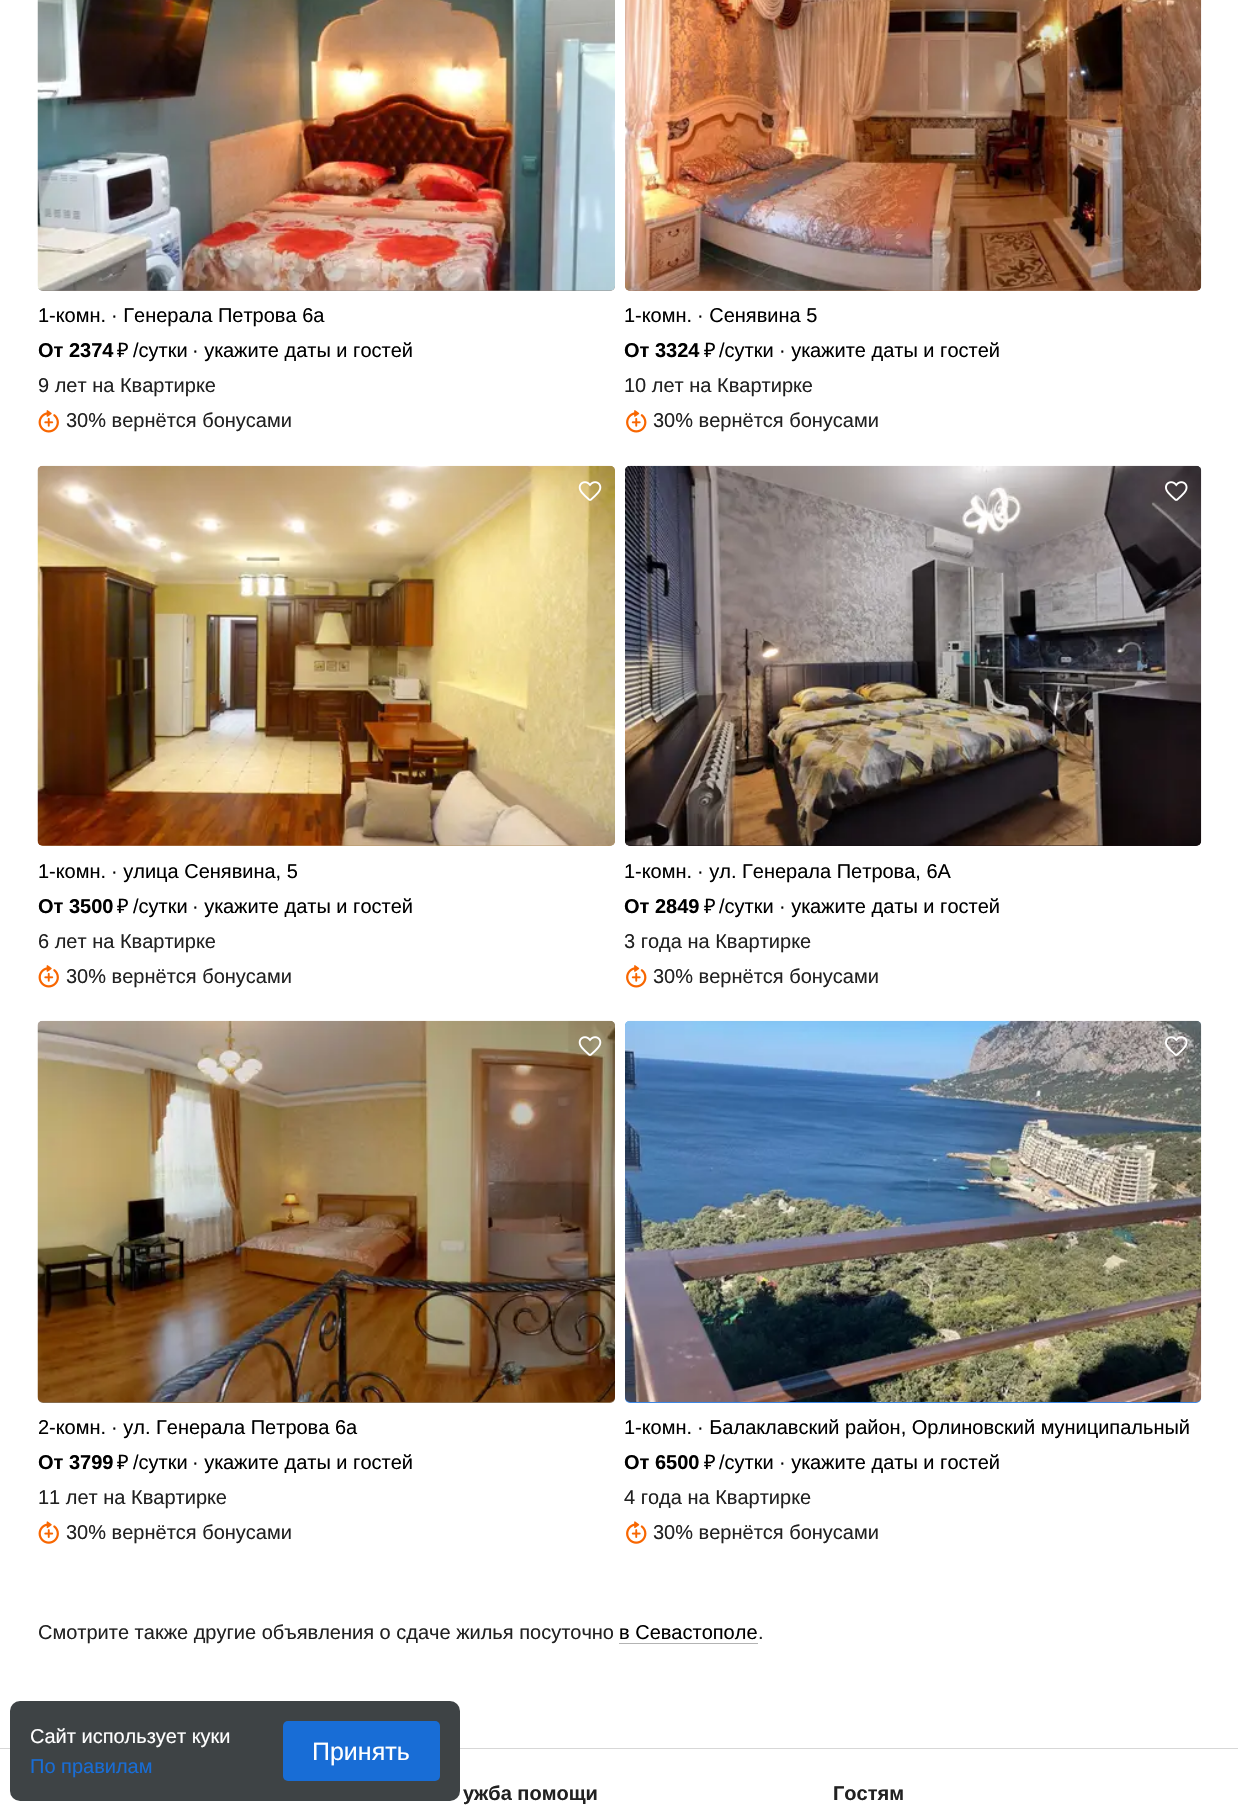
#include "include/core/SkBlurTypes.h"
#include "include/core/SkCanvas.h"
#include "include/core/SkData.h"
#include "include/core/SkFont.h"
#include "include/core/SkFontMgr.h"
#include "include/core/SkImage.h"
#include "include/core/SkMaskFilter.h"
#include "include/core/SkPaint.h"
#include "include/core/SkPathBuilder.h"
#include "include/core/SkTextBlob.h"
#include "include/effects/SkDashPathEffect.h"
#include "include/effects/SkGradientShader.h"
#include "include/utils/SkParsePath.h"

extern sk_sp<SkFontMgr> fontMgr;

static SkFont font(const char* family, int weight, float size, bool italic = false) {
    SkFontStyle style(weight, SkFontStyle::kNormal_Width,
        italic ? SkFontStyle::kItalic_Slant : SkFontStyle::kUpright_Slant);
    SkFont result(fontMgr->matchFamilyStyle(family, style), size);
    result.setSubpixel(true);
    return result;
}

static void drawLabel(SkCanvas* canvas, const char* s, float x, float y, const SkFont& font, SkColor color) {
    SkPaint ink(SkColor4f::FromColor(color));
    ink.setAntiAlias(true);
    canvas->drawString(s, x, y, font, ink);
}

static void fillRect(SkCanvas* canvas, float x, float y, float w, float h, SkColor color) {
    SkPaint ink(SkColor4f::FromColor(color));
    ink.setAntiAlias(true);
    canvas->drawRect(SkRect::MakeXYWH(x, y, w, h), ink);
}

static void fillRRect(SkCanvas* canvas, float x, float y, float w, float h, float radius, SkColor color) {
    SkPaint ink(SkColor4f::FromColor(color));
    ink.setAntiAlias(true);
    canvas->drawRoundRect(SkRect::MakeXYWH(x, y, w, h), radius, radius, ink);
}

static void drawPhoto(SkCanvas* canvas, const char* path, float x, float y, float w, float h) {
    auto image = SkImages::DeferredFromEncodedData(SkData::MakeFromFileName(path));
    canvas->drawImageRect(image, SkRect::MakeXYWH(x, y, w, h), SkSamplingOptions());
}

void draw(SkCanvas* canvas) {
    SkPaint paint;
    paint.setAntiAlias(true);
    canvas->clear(0xFFFFFFFF);
    fillRRect(canvas, 38, -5, 577, 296, 5, 0xFF8F867F);
    drawPhoto(canvas, "assets/img1.png", 37, 0, 578, 291);
    SkFont font1 = font("Liberation Sans", 400, 20);
    drawLabel(canvas, "1-комн.", 38, 322, font1, 0xFF000000);
    drawLabel(canvas, "· Генерала Петрова 6а", 111, 322, font1, 0xFF000000);
    SkFont font2 = font("Liberation Sans", 700, 20);
    drawLabel(canvas, "От 2374", 38, 357, font2, 0xFF000000);
    SkFont font3 = font("Noto Sans", 400, 20);
    drawLabel(canvas, "₽", 117, 357, font3, 0xFF000000);
    drawLabel(canvas, "/сутки", 133, 357, font1, 0xFF000000);
    drawLabel(canvas, "· укажите даты и гостей", 192, 357, font1, 0xFF000000);
    drawLabel(canvas, "9 лет на Квартирке", 38, 392, font1, 0xFF212121);
    drawPhoto(canvas, "assets/img2.png", 38, 410, 21, 23);
    drawLabel(canvas, "30% вернётся бонусами", 66, 427, font1, 0xFF212121);
    fillRRect(canvas, 625, -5, 576, 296, 5, 0xFFA87C60);
    drawPhoto(canvas, "assets/img3.png", 625, 0, 577, 291);
    drawLabel(canvas, "1-комн.", 624, 322, font1, 0xFF000000);
    drawLabel(canvas, "· Сенявина 5", 697, 322, font1, 0xFF000000);
    drawLabel(canvas, "От 3324", 624, 357, font2, 0xFF000000);
    drawLabel(canvas, "₽", 704, 357, font3, 0xFF000000);
    drawLabel(canvas, "/сутки", 719, 357, font1, 0xFF000000);
    drawLabel(canvas, "· укажите даты и гостей", 779, 357, font1, 0xFF000000);
    drawLabel(canvas, "10 лет на Квартирке", 624, 392, font1, 0xFF212121);
    drawPhoto(canvas, "assets/img4.png", 626, 410, 21, 23);
    drawLabel(canvas, "30% вернётся бонусами", 653, 427, font1, 0xFF212121);
    fillRRect(canvas, 38, 466, 577, 380, 5, 0xFFB19265);
    drawPhoto(canvas, "assets/img5.png", 37, 465, 578, 381);
    drawPhoto(canvas, "assets/img6.png", 578, 481, 24, 20);
    drawLabel(canvas, "1-комн.", 38, 878, font1, 0xFF000000);
    drawLabel(canvas, "· улица Сенявина, 5", 111, 878, font1, 0xFF000000);
    drawLabel(canvas, "От 3500", 38, 913, font2, 0xFF000000);
    drawLabel(canvas, "₽", 117, 913, font3, 0xFF000000);
    drawLabel(canvas, "/сутки", 133, 913, font1, 0xFF000000);
    drawLabel(canvas, "· укажите даты и гостей", 192, 913, font1, 0xFF000000);
    drawLabel(canvas, "6 лет на Квартирке", 38, 948, font1, 0xFF212121);
    drawPhoto(canvas, "assets/img2.png", 38, 965, 21, 23);
    drawLabel(canvas, "30% вернётся бонусами", 66, 983, font1, 0xFF212121);
    fillRRect(canvas, 625, 466, 576, 380, 5, 0xFF150F11);
    drawPhoto(canvas, "assets/img7.png", 625, 465, 577, 381);
    drawPhoto(canvas, "assets/img8.png", 1165, 481, 23, 20);
    drawLabel(canvas, "1-комн.", 624, 878, font1, 0xFF000000);
    drawLabel(canvas, "· ул. Генерала Петрова, 6А", 697, 878, font1, 0xFF000000);
    drawLabel(canvas, "От 2849", 624, 913, font2, 0xFF000000);
    drawLabel(canvas, "₽", 704, 913, font3, 0xFF000000);
    drawLabel(canvas, "/сутки", 719, 913, font1, 0xFF000000);
    drawLabel(canvas, "· укажите даты и гостей", 779, 913, font1, 0xFF000000);
    drawLabel(canvas, "3 года на Квартирке", 624, 948, font1, 0xFF212121);
    drawPhoto(canvas, "assets/img4.png", 626, 965, 21, 23);
    drawLabel(canvas, "30% вернётся бонусами", 653, 983, font1, 0xFF212121);
    fillRRect(canvas, 38, 1021, 577, 382, 5, 0xFF876C4D);
    drawPhoto(canvas, "assets/img9.png", 37, 1020, 578, 382);
    drawPhoto(canvas, "assets/img10.png", 578, 1036, 24, 20);
    drawLabel(canvas, "2-комн.", 38, 1434, font1, 0xFF000000);
    drawLabel(canvas, "· ул. Генерала Петрова 6а", 111, 1434, font1, 0xFF000000);
    drawLabel(canvas, "От 3799", 38, 1469, font2, 0xFF000000);
    drawLabel(canvas, "₽", 117, 1469, font3, 0xFF000000);
    drawLabel(canvas, "/сутки", 133, 1469, font1, 0xFF000000);
    drawLabel(canvas, "· укажите даты и гостей", 192, 1469, font1, 0xFF000000);
    drawLabel(canvas, "11 лет на Квартирке", 38, 1504, font1, 0xFF212121);
    drawPhoto(canvas, "assets/img11.png", 38, 1521, 21, 23);
    drawLabel(canvas, "30% вернётся бонусами", 66, 1539, font1, 0xFF212121);
    fillRRect(canvas, 625, 1021, 576, 382, 5, 0xFF3B87E5);
    drawPhoto(canvas, "assets/img12.png", 625, 1020, 577, 382);
    drawPhoto(canvas, "assets/img13.png", 1165, 1036, 23, 20);
    drawLabel(canvas, "1-комн.", 624, 1434, font1, 0xFF000000);
    drawLabel(canvas, "· Балаклавский район, Орлиновский муниципальный", 697, 1434, font1, 0xFF000000);
    drawLabel(canvas, "От 6500", 624, 1469, font2, 0xFF000000);
    drawLabel(canvas, "₽", 704, 1469, font3, 0xFF000000);
    drawLabel(canvas, "/сутки", 719, 1469, font1, 0xFF000000);
    drawLabel(canvas, "· укажите даты и гостей", 779, 1469, font1, 0xFF000000);
    drawLabel(canvas, "4 года на Квартирке", 624, 1504, font1, 0xFF212121);
    drawPhoto(canvas, "assets/img14.png", 626, 1521, 21, 23);
    drawLabel(canvas, "30% вернётся бонусами", 653, 1539, font1, 0xFF212121);
    drawLabel(canvas, "Смотрите также другие объявления о сдаче жилья посуточно", 38, 1639, font1, 0xFF212121);
    drawLabel(canvas, "в Севастополе", 619, 1639, font1, 0xFF000000);
    drawLabel(canvas, ".", 758, 1639, font1, 0xFF212121);
    fillRect(canvas, 619, 1643, 139, 1, 0xFFB3B3B3);
    fillRect(canvas, 0, 1748, 1238, 1, 0xFFD7D7D7);
    fillRRect(canvas, 10, 1701, 450, 100, 10, 0xFF3E4345);
    drawLabel(canvas, "Сайт использует куки", 30, 1743, font1, 0xFFFFFFFF);
    fillRRect(canvas, 283, 1721, 157, 60, 5, 0xFF186DD6);
    SkFont font4 = font("Liberation Sans", 400, 25);
    drawLabel(canvas, "Принять", 312, 1760, font4, 0xFFFFFFFF);
    drawLabel(canvas, "По правилам", 30, 1773, font1, 0xFF186DD6);
    drawLabel(canvas, "ужба помощи", 463, 1800, font2, 0xFF212121);
    drawLabel(canvas, "Гостям", 833, 1800, font2, 0xFF212121);
}
